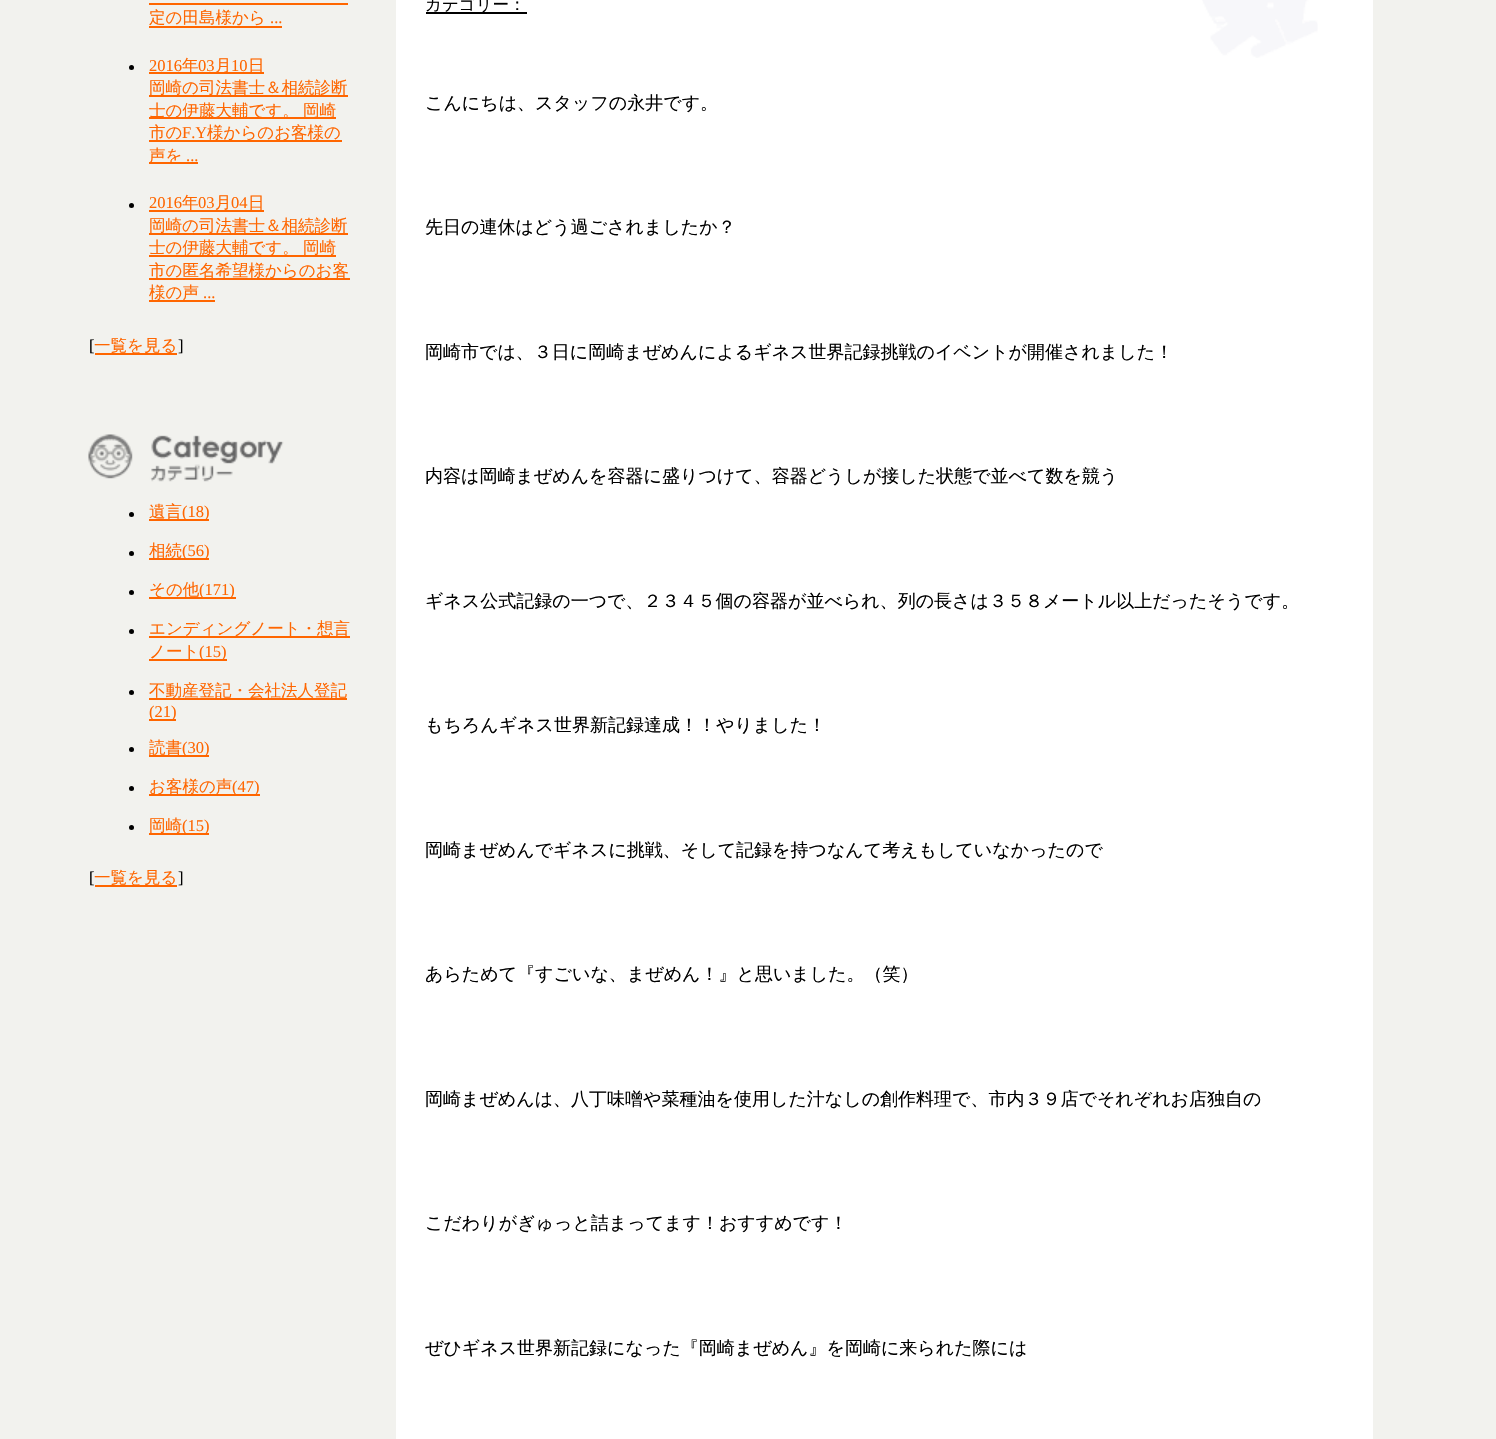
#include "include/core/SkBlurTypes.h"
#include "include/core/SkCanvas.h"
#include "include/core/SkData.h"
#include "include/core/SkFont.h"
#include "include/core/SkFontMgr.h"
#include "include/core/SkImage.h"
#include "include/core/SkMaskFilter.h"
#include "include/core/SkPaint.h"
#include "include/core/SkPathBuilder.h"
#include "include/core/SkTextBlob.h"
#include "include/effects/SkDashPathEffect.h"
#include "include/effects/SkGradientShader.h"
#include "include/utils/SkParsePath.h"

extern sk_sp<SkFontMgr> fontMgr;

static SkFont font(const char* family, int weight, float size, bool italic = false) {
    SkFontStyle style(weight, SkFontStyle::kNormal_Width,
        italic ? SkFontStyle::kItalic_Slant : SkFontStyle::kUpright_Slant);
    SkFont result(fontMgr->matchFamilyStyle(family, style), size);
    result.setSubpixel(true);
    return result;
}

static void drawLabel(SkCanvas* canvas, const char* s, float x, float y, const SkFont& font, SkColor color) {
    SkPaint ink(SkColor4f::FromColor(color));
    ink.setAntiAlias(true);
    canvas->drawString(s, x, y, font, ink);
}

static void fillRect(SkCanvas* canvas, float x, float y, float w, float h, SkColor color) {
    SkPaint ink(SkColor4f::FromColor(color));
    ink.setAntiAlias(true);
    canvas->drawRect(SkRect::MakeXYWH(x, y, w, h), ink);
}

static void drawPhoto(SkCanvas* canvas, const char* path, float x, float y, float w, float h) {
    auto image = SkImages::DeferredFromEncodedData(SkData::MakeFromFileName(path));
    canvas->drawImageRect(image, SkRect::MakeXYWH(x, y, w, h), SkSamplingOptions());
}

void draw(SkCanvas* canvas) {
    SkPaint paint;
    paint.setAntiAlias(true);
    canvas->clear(0xFFF2F2EE);
    SkFont font1 = font("WenQuanYi Zen Hei", 500, 16.5f);
    drawLabel(canvas, "定の田島様から", 149, 23, font1, 0xFFFF6600);
    fillRect(canvas, 149, 3, 199, 2, 0xFFFF6600);
    SkFont font2 = font("Liberation Serif", 400, 16.5f);
    drawLabel(canvas, "...", 270, 23, font2, 0xFFFF6600);
    fillRect(canvas, 149, 26, 133, 2, 0xFFFF6600);
    paint.setColor(0xFF000000);
    canvas->drawCircle(131.5f, 67.5f, 2.5f, paint);
    drawLabel(canvas, "2016", 149, 71, font2, 0xFFFF6600);
    fillRect(canvas, 149, 72, 115, 2, 0xFFFF6600);
    drawLabel(canvas, "年", 182, 71, font1, 0xFFFF6600);
    drawLabel(canvas, "03", 198, 71, font2, 0xFFFF6600);
    drawLabel(canvas, "月", 215, 71, font1, 0xFFFF6600);
    drawLabel(canvas, "10", 231, 71, font2, 0xFFFF6600);
    drawLabel(canvas, "日", 248, 71, font1, 0xFFFF6600);
    fillRect(canvas, 149, 95, 199, 2, 0xFFFF6600);
    drawLabel(canvas, "岡崎の司法書士＆相続診断", 149, 93, font1, 0xFFFF6600);
    fillRect(canvas, 149, 117, 187, 2, 0xFFFF6600);
    drawLabel(canvas, "士の伊藤大輔です。", 149, 116, font1, 0xFFFF6600);
    drawLabel(canvas, "岡崎", 303, 116, font1, 0xFFFF6600);
    drawLabel(canvas, "市の", 149, 138, font1, 0xFFFF6600);
    drawLabel(canvas, "F.Y", 182, 138, font2, 0xFFFF6600);
    fillRect(canvas, 149, 140, 193, 2, 0xFFFF6600);
    drawLabel(canvas, "様からのお客様の", 207, 138, font1, 0xFFFF6600);
    fillRect(canvas, 149, 162, 49, 2, 0xFFFF6600);
    drawLabel(canvas, "声を", 149, 161, font1, 0xFFFF6600);
    drawLabel(canvas, "...", 186, 161, font2, 0xFFFF6600);
    canvas->drawCircle(131.5f, 205.5f, 2.5f, paint);
    drawLabel(canvas, "2016", 149, 208, font2, 0xFFFF6600);
    fillRect(canvas, 149, 210, 115, 2, 0xFFFF6600);
    drawLabel(canvas, "年", 182, 208, font1, 0xFFFF6600);
    drawLabel(canvas, "03", 198, 208, font2, 0xFFFF6600);
    drawLabel(canvas, "月", 215, 208, font1, 0xFFFF6600);
    drawLabel(canvas, "04", 231, 208, font2, 0xFFFF6600);
    drawLabel(canvas, "日", 248, 208, font1, 0xFFFF6600);
    fillRect(canvas, 149, 233, 199, 2, 0xFFFF6600);
    drawLabel(canvas, "岡崎の司法書士＆相続診断", 149, 231, font1, 0xFFFF6600);
    fillRect(canvas, 149, 255, 187, 2, 0xFFFF6600);
    drawLabel(canvas, "士の伊藤大輔です。", 149, 253, font1, 0xFFFF6600);
    drawLabel(canvas, "岡崎", 303, 253, font1, 0xFFFF6600);
    fillRect(canvas, 149, 278, 201, 2, 0xFFFF6600);
    drawLabel(canvas, "市の匿名希望様からのお客", 149, 276, font1, 0xFFFF6600);
    fillRect(canvas, 149, 300, 66, 2, 0xFFFF6600);
    drawLabel(canvas, "様の声", 149, 298, font1, 0xFFFF6600);
    drawLabel(canvas, "...", 203, 298, font2, 0xFFFF6600);
    drawLabel(canvas, "[", 89, 351, font2, 0xFF000000);
    fillRect(canvas, 95, 353, 82, 2, 0xFFFF6600);
    drawLabel(canvas, "一覧を見る", 94, 351, font1, 0xFFFF6600);
    drawLabel(canvas, "]", 178, 351, font2, 0xFF000000);
    drawPhoto(canvas, "assets/img1.png", 88, 434, 196, 48);
    canvas->drawCircle(131.5f, 514.5f, 2.5f, paint);
    drawLabel(canvas, "遺言", 149, 517, font1, 0xFFFF6600);
    fillRect(canvas, 149, 519, 60, 2, 0xFFFF6600);
    drawLabel(canvas, "(18)", 182, 517, font2, 0xFFFF6600);
    canvas->drawCircle(131.5f, 553.5f, 2.5f, paint);
    drawLabel(canvas, "相続", 149, 556, font1, 0xFFFF6600);
    fillRect(canvas, 149, 558, 60, 2, 0xFFFF6600);
    drawLabel(canvas, "(56)", 182, 556, font2, 0xFFFF6600);
    canvas->drawCircle(131.5f, 592.5f, 2.5f, paint);
    fillRect(canvas, 149, 597, 87, 2, 0xFFFF6600);
    drawLabel(canvas, "その他", 149, 595, font1, 0xFFFF6600);
    drawLabel(canvas, "(171)", 199, 595, font2, 0xFFFF6600);
    canvas->drawCircle(131.5f, 631.5f, 2.5f, paint);
    fillRect(canvas, 149, 636, 201, 2, 0xFFFF6600);
    drawLabel(canvas, "エンディングノート・想言", 149, 634, font1, 0xFFFF6600);
    fillRect(canvas, 149, 659, 78, 2, 0xFFFF6600);
    drawLabel(canvas, "ノート", 149, 657, font1, 0xFFFF6600);
    drawLabel(canvas, "(15)", 199, 657, font2, 0xFFFF6600);
    canvas->drawCircle(131.5f, 692.5f, 2.5f, paint);
    fillRect(canvas, 149, 698, 198, 2, 0xFFFF6600);
    drawLabel(canvas, "不動産登記・会社法人登記", 149, 696, font1, 0xFFFF6600);
    fillRect(canvas, 149, 719, 27, 2, 0xFFFF6600);
    drawLabel(canvas, "(21)", 149, 717, font2, 0xFFFF6600);
    canvas->drawCircle(131.5f, 749.5f, 2.5f, paint);
    fillRect(canvas, 149, 755, 60, 2, 0xFFFF6600);
    drawLabel(canvas, "読書", 149, 753, font1, 0xFFFF6600);
    drawLabel(canvas, "(30)", 182, 753, font2, 0xFFFF6600);
    canvas->drawCircle(131.5f, 788.5f, 2.5f, paint);
    fillRect(canvas, 149, 794, 111, 2, 0xFFFF6600);
    drawLabel(canvas, "お客様の声", 149, 792, font1, 0xFFFF6600);
    drawLabel(canvas, "(47)", 232, 792, font2, 0xFFFF6600);
    canvas->drawCircle(131.5f, 827.5f, 2.5f, paint);
    fillRect(canvas, 149, 833, 60, 2, 0xFFFF6600);
    drawLabel(canvas, "岡崎", 149, 831, font1, 0xFFFF6600);
    drawLabel(canvas, "(15)", 182, 831, font2, 0xFFFF6600);
    drawLabel(canvas, "[", 89, 883, font2, 0xFF000000);
    fillRect(canvas, 95, 885, 82, 2, 0xFFFF6600);
    drawLabel(canvas, "一覧を見る", 94, 883, font1, 0xFFFF6600);
    drawLabel(canvas, "]", 178, 883, font2, 0xFF000000);
    fillRect(canvas, 396, 0, 977, 1439, 0xFFFFFFFF);
    drawPhoto(canvas, "assets/img2.png", 1202, 0, 116, 58);
    fillRect(canvas, 426, 12, 101, 2, 0xFF000000);
    drawLabel(canvas, "カテゴリー：", 425, 10, font1, 0xFF000000);
    SkFont font3 = font("WenQuanYi Zen Hei", 500, 18);
    drawLabel(canvas, "こんにちは、スタッフの永井です。", 425, 109, font3, 0xFF000000);
    drawLabel(canvas, "先日の連休はどう過ごされましたか？", 425, 233, font3, 0xFF000000);
    drawLabel(canvas, "岡崎市では、３日に岡崎まぜめんによるギネス世界記録挑戦のイベントが開催されました！", 425, 358, font3, 0xFF000000);
    drawLabel(canvas, "内容は岡崎まぜめんを容器に盛りつけて、容器どうしが接した状態で並べて数を競う", 425, 482, font3, 0xFF000000);
    drawLabel(canvas, "ギネス公式記録の一つで、２３４５個の容器が並べられ、列の長さは３５８メートル以上だったそうです。", 425, 607, font3, 0xFF000000);
    drawLabel(canvas, "もちろんギネス世界新記録達成！！やりました！", 425, 731, font3, 0xFF000000);
    drawLabel(canvas, "岡崎まぜめんでギネスに挑戦、そして記録を持つなんて考えもしていなかったので", 425, 856, font3, 0xFF000000);
    drawLabel(canvas, "あらためて『すごいな、まぜめん！』と思いました。（笑）", 425, 980, font3, 0xFF000000);
    drawLabel(canvas, "岡崎まぜめんは、八丁味噌や菜種油を使用した汁なしの創作料理で、市内３９店でそれぞれお店独自の", 425, 1105, font3, 0xFF000000);
    drawLabel(canvas, "こだわりがぎゅっと詰まってます！おすすめです！", 425, 1229, font3, 0xFF000000);
    drawLabel(canvas, "ぜひギネス世界新記録になった『岡崎まぜめん』を岡崎に来られた際には", 425, 1354, font3, 0xFF000000);
}
